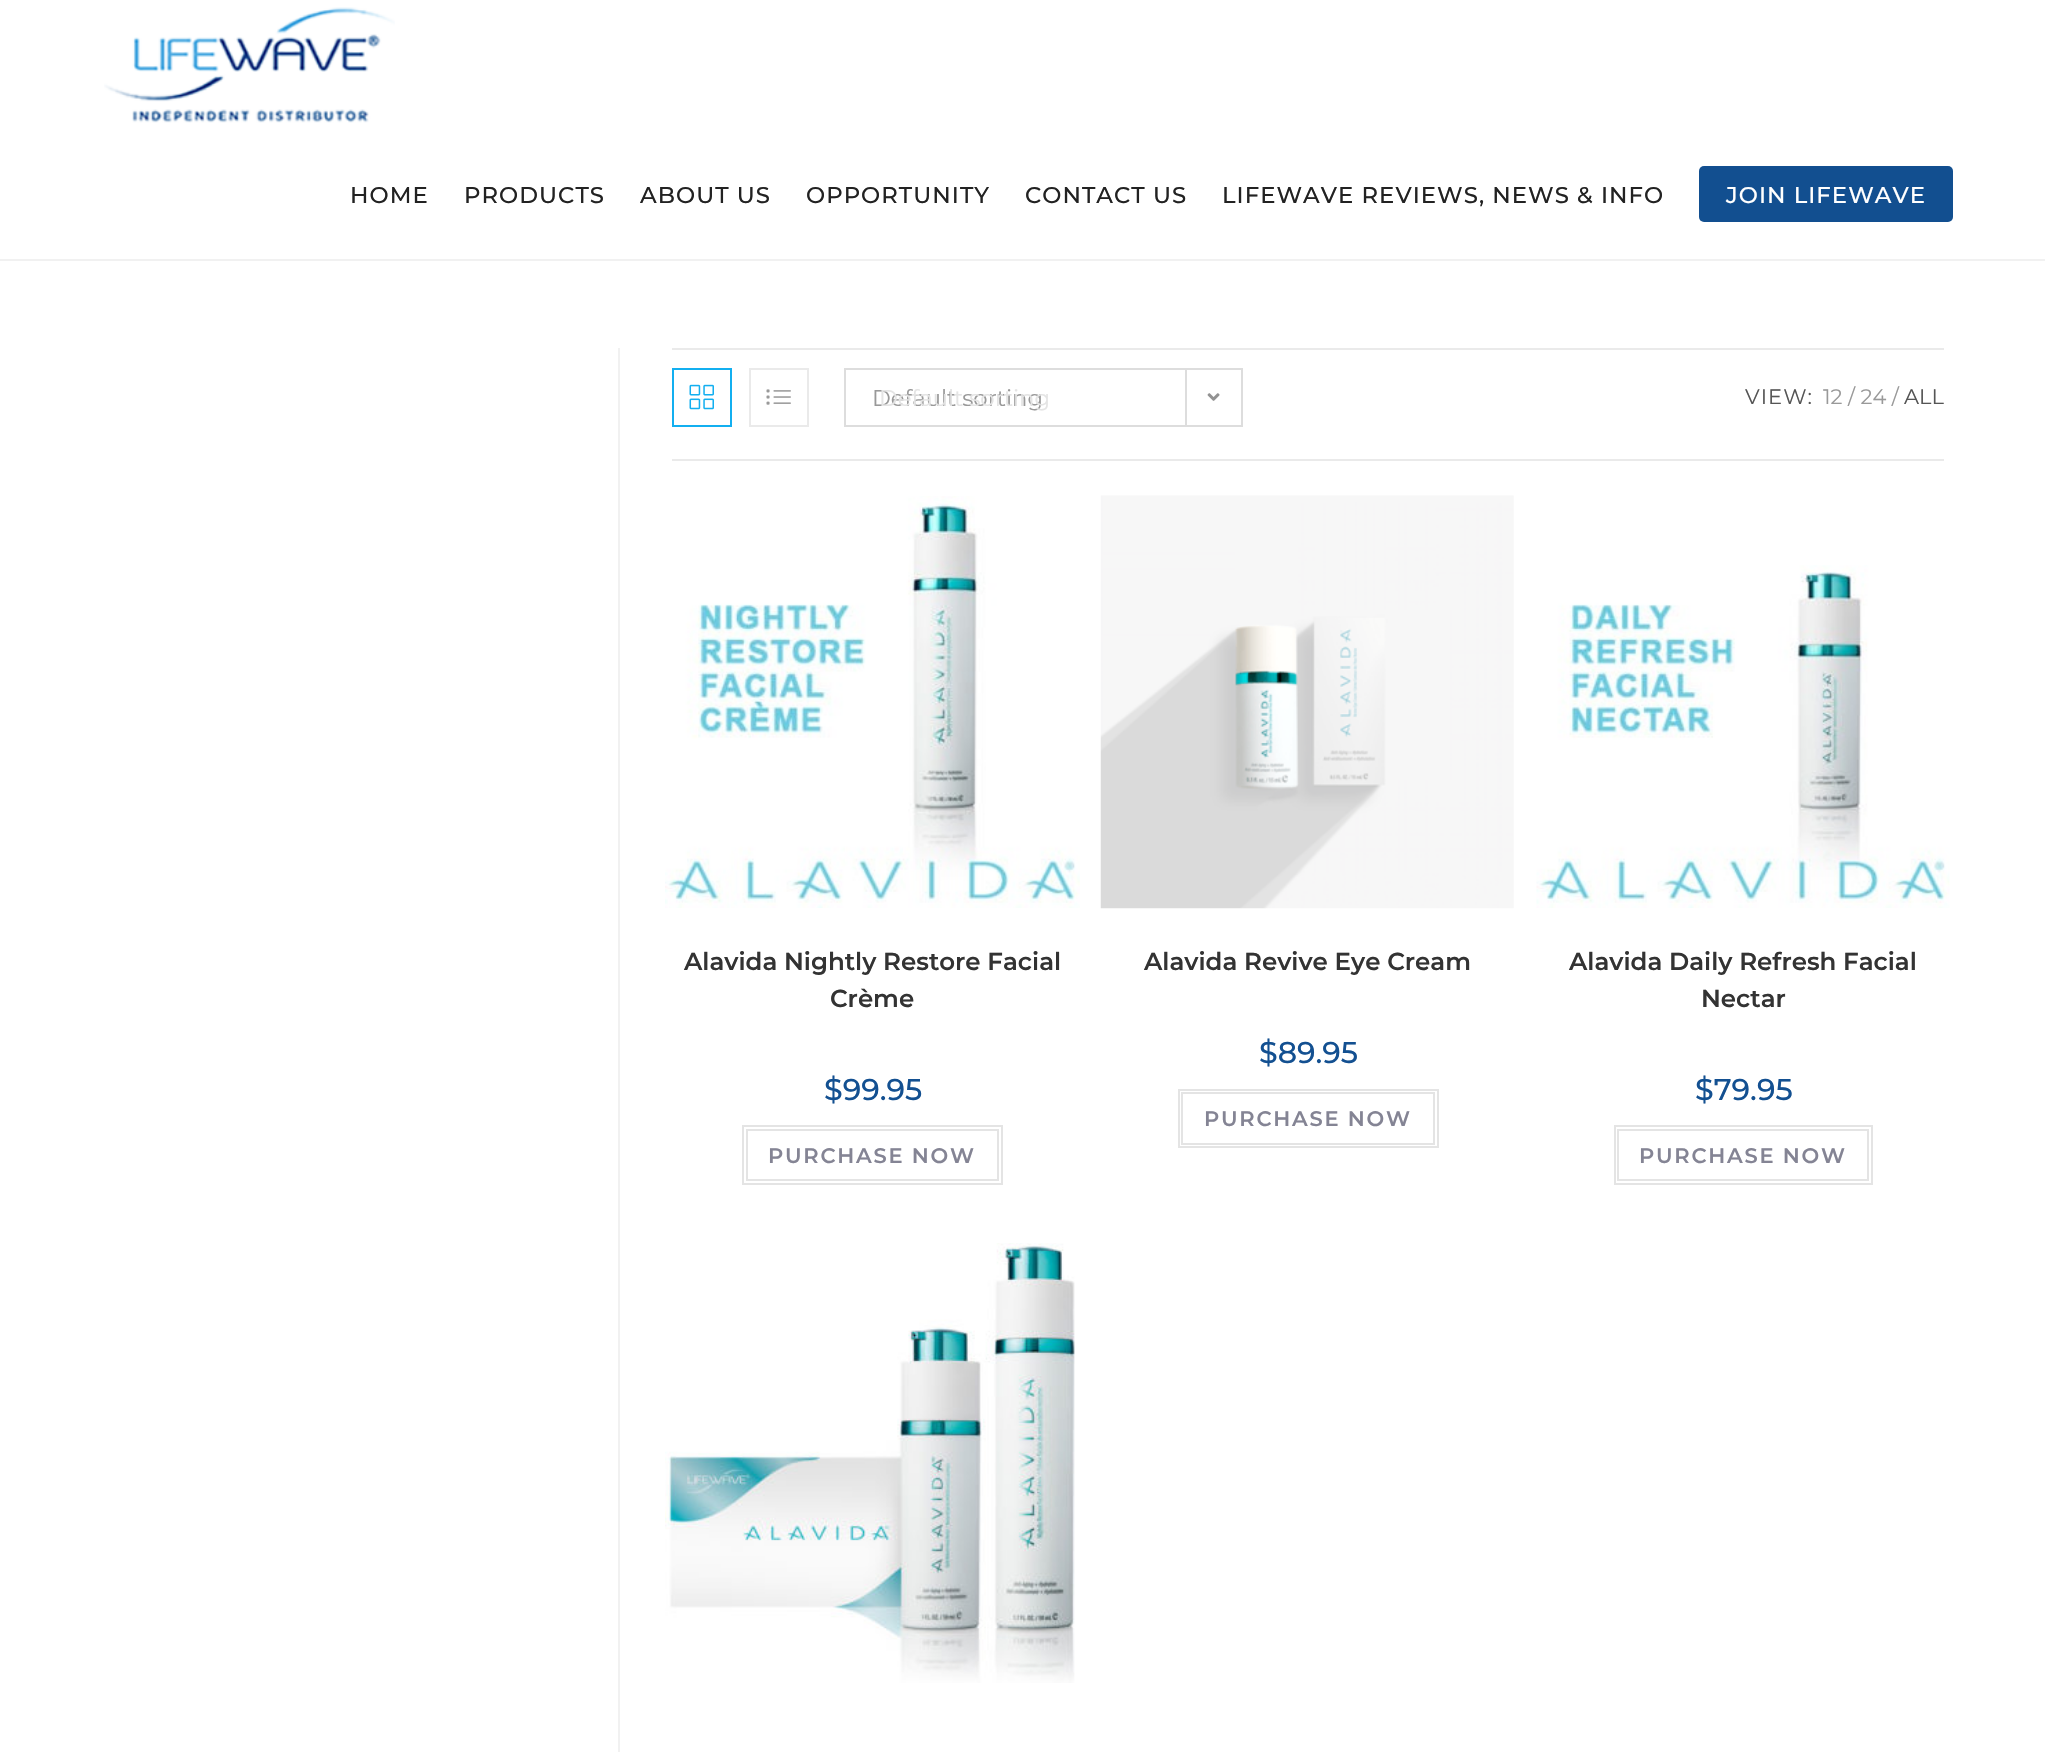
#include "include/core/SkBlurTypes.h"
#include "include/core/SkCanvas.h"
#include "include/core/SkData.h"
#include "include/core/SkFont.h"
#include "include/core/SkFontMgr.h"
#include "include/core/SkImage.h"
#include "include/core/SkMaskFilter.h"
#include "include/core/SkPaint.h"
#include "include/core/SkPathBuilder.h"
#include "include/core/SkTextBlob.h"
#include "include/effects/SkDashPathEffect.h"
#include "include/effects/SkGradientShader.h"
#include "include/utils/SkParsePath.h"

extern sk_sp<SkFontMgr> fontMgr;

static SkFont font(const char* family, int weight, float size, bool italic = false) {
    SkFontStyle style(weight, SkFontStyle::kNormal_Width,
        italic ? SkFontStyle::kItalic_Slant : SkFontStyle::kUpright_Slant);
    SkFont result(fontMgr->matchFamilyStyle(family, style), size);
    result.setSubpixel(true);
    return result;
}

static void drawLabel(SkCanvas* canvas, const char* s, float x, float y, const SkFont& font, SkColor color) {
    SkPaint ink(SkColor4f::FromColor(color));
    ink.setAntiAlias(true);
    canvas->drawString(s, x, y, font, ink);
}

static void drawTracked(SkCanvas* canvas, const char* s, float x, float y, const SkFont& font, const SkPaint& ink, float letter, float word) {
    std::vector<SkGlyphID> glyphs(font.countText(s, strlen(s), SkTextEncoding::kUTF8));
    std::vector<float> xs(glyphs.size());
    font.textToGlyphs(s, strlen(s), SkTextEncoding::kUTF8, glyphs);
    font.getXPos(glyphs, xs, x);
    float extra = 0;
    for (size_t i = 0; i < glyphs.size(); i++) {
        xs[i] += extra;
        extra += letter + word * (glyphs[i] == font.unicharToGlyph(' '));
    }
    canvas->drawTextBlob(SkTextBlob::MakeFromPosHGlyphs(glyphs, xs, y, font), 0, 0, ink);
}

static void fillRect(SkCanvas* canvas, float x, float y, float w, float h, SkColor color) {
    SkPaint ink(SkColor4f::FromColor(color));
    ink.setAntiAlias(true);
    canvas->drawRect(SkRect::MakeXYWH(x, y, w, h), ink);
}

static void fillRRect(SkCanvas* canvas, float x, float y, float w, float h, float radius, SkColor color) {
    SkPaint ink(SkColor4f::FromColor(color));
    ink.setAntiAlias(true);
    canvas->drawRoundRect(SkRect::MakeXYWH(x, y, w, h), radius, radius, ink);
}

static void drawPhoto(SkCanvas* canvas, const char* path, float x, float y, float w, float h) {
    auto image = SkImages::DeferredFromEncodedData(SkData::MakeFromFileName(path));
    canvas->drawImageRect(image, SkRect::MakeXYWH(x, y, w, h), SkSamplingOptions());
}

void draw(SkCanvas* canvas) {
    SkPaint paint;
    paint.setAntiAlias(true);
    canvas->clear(0xFFFFFFFF);
    fillRect(canvas, 0, 259, 2045, 2, 0xFFF1F1F1);
    drawPhoto(canvas, "assets/img1.png", 104, 7, 291, 116);
    SkFont font1 = font("Montserrat", 500, 22.75f);
    paint.setColor(0xFF222222);
    drawTracked(canvas, "HOME", 350, 203, font1, paint, 1.05f, 0);
    drawTracked(canvas, "PRODUCTS", 464, 203, font1, paint, 1.05f, 0);
    drawTracked(canvas, "ABOUT US", 640, 203, font1, paint, 1.05f, 0);
    drawTracked(canvas, "OPPORTUNITY", 806, 203, font1, paint, 1.05f, 0);
    drawTracked(canvas, "CONTACT US", 1025, 203, font1, paint, 1.05f, 0);
    drawTracked(canvas, "LIFEWAVE REVIEWS, NEWS & INFO", 1222, 203, font1, paint, 1.05f, 0);
    fillRRect(canvas, 1699, 166, 254, 56, 5, 0xFF124F90);
    paint.setColor(0xFFFFFFFF);
    drawTracked(canvas, "JOIN LIFEWAVE", 1726, 203, font1, paint, 1.05f, 0);
    fillRect(canvas, 618, 348, 2, 1404, 0xFFF1F1F1);
    fillRect(canvas, 672, 348, 1272, 2, 0xFFEAEAEA);
    fillRect(canvas, 672, 459, 1272, 2, 0xFFEAEAEA);
    paint.setStroke(true);
    paint.setStrokeWidth(2);
    paint.setColor(0xFF13AFF0);
    canvas->drawRect(SkRect::MakeXYWH(673, 369, 58, 57), paint);
    drawPhoto(canvas, "assets/img2.png", 689, 384, 25, 26);
    paint.setColor(0xFFEAEAEA);
    canvas->drawRect(SkRect::MakeXYWH(750, 369, 58, 57), paint);
    drawPhoto(canvas, "assets/img3.png", 766, 389, 25, 16);
    paint.setColor(0xFFDDDDDD);
    canvas->drawRect(SkRect::MakeXYWH(845, 369, 397, 57), paint);
    SkFont font2 = font("Montserrat", 400, 22.75f);
    drawLabel(canvas, "Default sorting", 872, 406, font2, 0xFF999999);
    fillRect(canvas, 1185, 369, 2, 56, 0xFFDDDDDD);
    drawPhoto(canvas, "assets/img4.png", 1207, 393, 13, 8);
    drawLabel(canvas, "Default sorting", 879, 406, font2, 0xFFE4E4E4);
    SkFont font3 = font("Montserrat", 400, 21);
    paint.setStroke(false);
    paint.setColor(0xFF555555);
    drawTracked(canvas, "VIEW:", 1745, 404, font3, paint, 1.05f, 0);
    drawLabel(canvas, "12 / 24 /", 1823, 404, font3, 0xFF999999);
    drawLabel(canvas, "ALL", 1904, 404, font3, 0xFF555555);
    drawPhoto(canvas, "assets/img5.png", 665, 496, 415, 412);
    SkFont font4 = font("Montserrat", 600, 24.5f);
    drawLabel(canvas, "Alavida Nightly Restore Facial", 684, 970, font4, 0xFF333333);
    drawLabel(canvas, "Crème", 830, 1007, font4, 0xFF333333);
    SkFont font5 = font("Montserrat", 500, 30);
    drawLabel(canvas, "$99.95", 824, 1100, font5, 0xFF135091);
    paint.setStroke(true);
    paint.setColor(0xFFE4E4E4);
    canvas->drawRect(SkRect::MakeXYWH(743, 1126, 259, 58), paint);
    canvas->drawRect(SkRect::MakeXYWH(747, 1130, 251, 50), paint);
    SkFont font6 = font("Montserrat", 600, 21);
    paint.setStroke(false);
    paint.setColor(0xFF848494);
    drawTracked(canvas, "PURCHASE NOW", 768, 1163, font6, paint, 1.75f, 0);
    drawPhoto(canvas, "assets/img6.png", 1100, 495, 414, 414);
    drawLabel(canvas, "Alavida Revive Eye Cream", 1144, 970, font4, 0xFF333333);
    drawLabel(canvas, "$89.95", 1259, 1063, font5, 0xFF135091);
    paint.setStroke(true);
    paint.setColor(0xFFE4E4E4);
    canvas->drawRect(SkRect::MakeXYWH(1179, 1090, 259, 57), paint);
    canvas->drawRect(SkRect::MakeXYWH(1182, 1093, 252, 51), paint);
    paint.setStroke(false);
    paint.setColor(0xFF848494);
    drawTracked(canvas, "PURCHASE NOW", 1204, 1126, font6, paint, 1.75f, 0);
    drawPhoto(canvas, "assets/img7.png", 1536, 565, 414, 343);
    drawLabel(canvas, "Alavida Daily Refresh Facial", 1569, 970, font4, 0xFF333333);
    drawLabel(canvas, "Nectar", 1701, 1007, font4, 0xFF333333);
    drawLabel(canvas, "$79.95", 1695, 1100, font5, 0xFF135091);
    paint.setStroke(true);
    paint.setColor(0xFFE4E4E4);
    canvas->drawRect(SkRect::MakeXYWH(1615, 1126, 257, 58), paint);
    canvas->drawRect(SkRect::MakeXYWH(1618, 1130, 250, 50), paint);
    paint.setStroke(false);
    paint.setColor(0xFF848494);
    drawTracked(canvas, "PURCHASE NOW", 1639, 1163, font6, paint, 1.75f, 0);
    drawPhoto(canvas, "assets/img8.png", 665, 1243, 410, 440);
}
